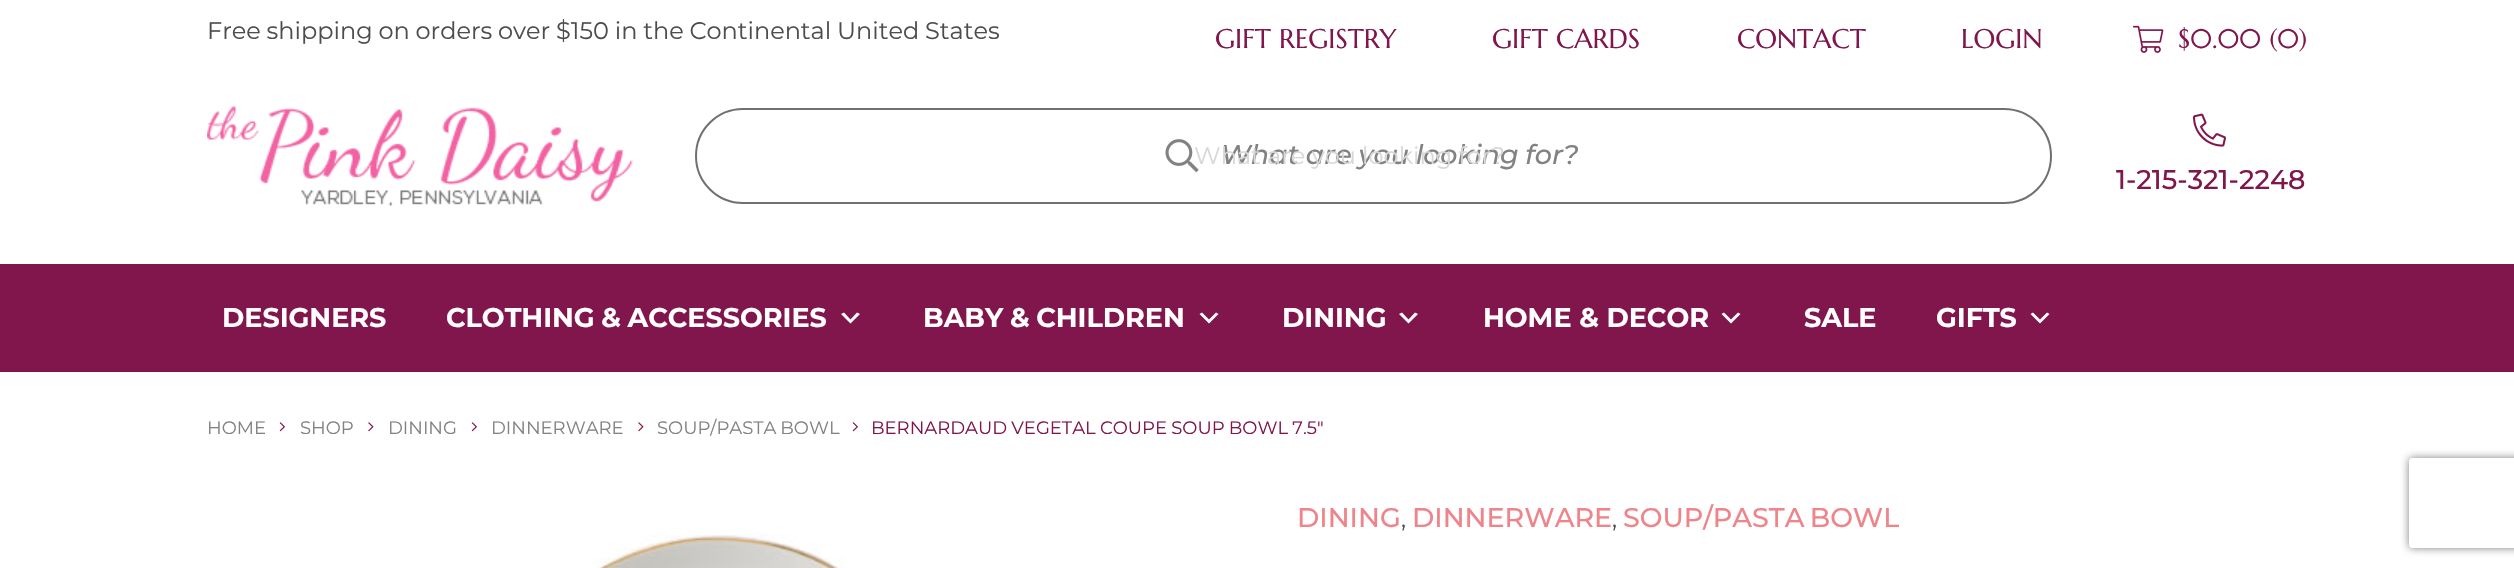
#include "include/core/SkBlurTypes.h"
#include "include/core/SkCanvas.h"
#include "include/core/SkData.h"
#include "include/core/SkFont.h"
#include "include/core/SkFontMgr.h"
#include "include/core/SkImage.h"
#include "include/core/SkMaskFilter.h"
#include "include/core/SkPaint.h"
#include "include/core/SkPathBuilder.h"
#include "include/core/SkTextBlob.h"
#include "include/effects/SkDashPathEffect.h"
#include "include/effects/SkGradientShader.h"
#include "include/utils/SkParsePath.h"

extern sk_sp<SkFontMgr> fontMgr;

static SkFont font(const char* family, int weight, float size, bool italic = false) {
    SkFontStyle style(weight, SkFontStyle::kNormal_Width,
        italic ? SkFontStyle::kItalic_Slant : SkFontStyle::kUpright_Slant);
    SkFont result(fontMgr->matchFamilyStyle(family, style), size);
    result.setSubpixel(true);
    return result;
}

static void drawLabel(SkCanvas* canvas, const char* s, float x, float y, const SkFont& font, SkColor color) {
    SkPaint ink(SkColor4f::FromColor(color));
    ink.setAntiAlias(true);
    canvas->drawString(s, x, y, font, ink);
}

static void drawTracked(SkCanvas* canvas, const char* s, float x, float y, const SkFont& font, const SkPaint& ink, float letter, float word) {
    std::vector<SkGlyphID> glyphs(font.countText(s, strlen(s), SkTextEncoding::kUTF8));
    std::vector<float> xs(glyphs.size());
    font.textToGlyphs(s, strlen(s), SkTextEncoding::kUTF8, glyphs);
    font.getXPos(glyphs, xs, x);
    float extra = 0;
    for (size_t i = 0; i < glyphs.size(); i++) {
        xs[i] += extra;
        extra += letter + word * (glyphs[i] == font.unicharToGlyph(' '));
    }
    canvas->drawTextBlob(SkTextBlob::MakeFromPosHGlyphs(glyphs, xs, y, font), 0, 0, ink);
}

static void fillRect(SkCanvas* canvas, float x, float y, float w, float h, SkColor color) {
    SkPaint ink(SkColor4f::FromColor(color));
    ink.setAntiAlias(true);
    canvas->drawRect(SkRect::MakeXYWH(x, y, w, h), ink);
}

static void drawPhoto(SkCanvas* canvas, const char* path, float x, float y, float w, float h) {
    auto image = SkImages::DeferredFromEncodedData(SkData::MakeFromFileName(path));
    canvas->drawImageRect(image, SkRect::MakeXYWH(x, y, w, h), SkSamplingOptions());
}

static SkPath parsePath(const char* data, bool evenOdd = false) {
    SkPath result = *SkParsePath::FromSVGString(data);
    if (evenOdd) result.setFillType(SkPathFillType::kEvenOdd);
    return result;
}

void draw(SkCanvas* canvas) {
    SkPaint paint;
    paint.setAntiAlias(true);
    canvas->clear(0xFFFFFFFF);
    SkFont font1 = font("Montserrat", 400, 24);
    paint.setColor(0xFF4D4D4D);
    drawTracked(canvas, "Free shipping on orders over $150 in the Continental United States", 207, 39, font1, paint, 0, -0.5f);
    SkFont font2 = font("Marcellus SC", 400, 27);
    drawLabel(canvas, "GIFT REGISTRY", 1215, 48, font2, 0xFF80164C);
    drawLabel(canvas, "GIFT CARDS", 1492, 48, font2, 0xFF80164C);
    drawLabel(canvas, "CONTACT", 1737, 48, font2, 0xFF80164C);
    drawLabel(canvas, "LOGIN", 1961, 48, font2, 0xFF80164C);
    drawPhoto(canvas, "assets/img1.png", 2133, 25, 31, 28);
    drawLabel(canvas, "$0.00 (0)", 2178, 48, font2, 0xFF80164C);
    drawPhoto(canvas, "assets/img2.png", 207, 106, 426, 100);
    paint.setStroke(true);
    paint.setStrokeWidth(2);
    paint.setColor(0xFF707070);
    canvas->drawRoundRect(SkRect::MakeXYWH(696, 109, 1355, 94), 47, 47, paint);
    drawPhoto(canvas, "assets/img3.png", 1165, 139, 34, 34);
    SkFont font3 = font("Montserrat", 100, 27, true);
    paint.setStroke(false);
    paint.setColor(0xFF828282);
    drawTracked(canvas, "What are you looking for?", 1221, 164, font3, paint, 0, -0.5f);
    drawLabel(canvas, "What are you looking for?", 1194, 164, font1, 0xFFD8D8D8);
    drawPhoto(canvas, "assets/img4.png", 2193, 113, 33, 34);
    SkFont font4 = font("Montserrat", 500, 27);
    drawLabel(canvas, "1-215-321-2248", 2116, 189, font4, 0xFF80164C);
    fillRect(canvas, 0, 264, 2514, 108, 0xFF80164C);
    SkFont font5 = font("Montserrat", 700, 27);
    drawLabel(canvas, "DESIGNERS", 222, 327, font5, 0xFFFFFFFF);
    paint.setColor(0xFFFFFFFF);
    drawTracked(canvas, "CLOTHING & ACCESSORIES", 446, 327, font5, paint, 0, -1);
    canvas->drawPath(parsePath("M844 312.5L850.5 319.5L857 312.5L860 314L850.5 323.5L841 314Z"), paint);
    drawTracked(canvas, "BABY & CHILDREN", 923, 327, font5, paint, 0, -1);
    canvas->drawPath(parsePath("M1202 312.5L1209 319.5L1216 312.5L1218.5 314L1209 323.5L1199.5 314Z"), paint);
    drawLabel(canvas, "DINING", 1282, 327, font5, 0xFFFFFFFF);
    canvas->drawPath(parsePath("M1402 312.5L1408.5 319.5L1415 312.5L1418 314L1408.5 323.5L1399 314Z"), paint);
    drawLabel(canvas, "HOME & DECOR", 1483, 327, font5, 0xFFFFFFFF);
    canvas->drawPath(parsePath("M1724 312.5L1731 319.5L1738 312.5L1740.5 314L1731 323.5L1721.5 314Z"), paint);
    drawLabel(canvas, "SALE", 1804, 327, font5, 0xFFFFFFFF);
    drawLabel(canvas, "GIFTS", 1936, 327, font5, 0xFFFFFFFF);
    canvas->drawPath(parsePath("M2033 312.5L2040 319.5L2047 312.5L2049.5 314L2040 323.5L2030.5 314Z"), paint);
    SkFont font6 = font("Montserrat", 400, 18);
    drawLabel(canvas, "HOME", 207, 434, font6, 0xFF828282);
    drawPhoto(canvas, "assets/img5.png", 279, 422, 6, 10);
    drawLabel(canvas, "SHOP", 300, 434, font6, 0xFF828282);
    drawPhoto(canvas, "assets/img6.png", 368, 422, 6, 10);
    drawLabel(canvas, "DINING", 388, 434, font6, 0xFF828282);
    drawPhoto(canvas, "assets/img5.png", 471, 422, 6, 10);
    drawLabel(canvas, "DINNERWARE", 491, 434, font6, 0xFF828282);
    drawPhoto(canvas, "assets/img6.png", 638, 422, 6, 10);
    paint.setColor(0xFF828282);
    drawTracked(canvas, "SOUP/PASTA BOWL", 657, 434, font6, paint, 0, -1);
    drawPhoto(canvas, "assets/img5.png", 852, 422, 6, 10);
    paint.setColor(0xFF80164C);
    drawTracked(canvas, "BERNARDAUD VEGETAL COUPE SOUP BOWL 7.5″", 871, 434, font6, paint, 0, -0.5f);
    drawLabel(canvas, "DINING", 1297, 527, font4, 0xFFEF848A);
    drawLabel(canvas, ",", 1401, 527, font1, 0xFF4D4D4D);
    drawLabel(canvas, "DINNERWARE", 1412, 527, font4, 0xFFEF848A);
    drawLabel(canvas, ",", 1612, 527, font1, 0xFF4D4D4D);
    paint.setColor(0xFFEF848A);
    drawTracked(canvas, "SOUP/PASTA BOWL", 1623, 527, font4, paint, 0, -2);
    drawPhoto(canvas, "assets/img7.png", 593, 534, 252, 34);
    canvas->save();
    canvas->clipPath(parsePath("M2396 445H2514V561H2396ZM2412 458H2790C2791.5 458 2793 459.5 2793 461V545C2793 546.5 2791.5 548 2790 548H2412C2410.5 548 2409 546.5 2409 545V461C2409 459.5 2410.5 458 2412 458Z", true), true);
    paint.setColor(0xFF808080);
    paint.setMaskFilter(SkMaskFilter::MakeBlur(kNormal_SkBlurStyle, 4));
    canvas->drawRoundRect(SkRect::MakeXYWH(2409, 458, 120, 90), 3, 3, paint);
    paint.setMaskFilter(nullptr);
    canvas->restore();
}
